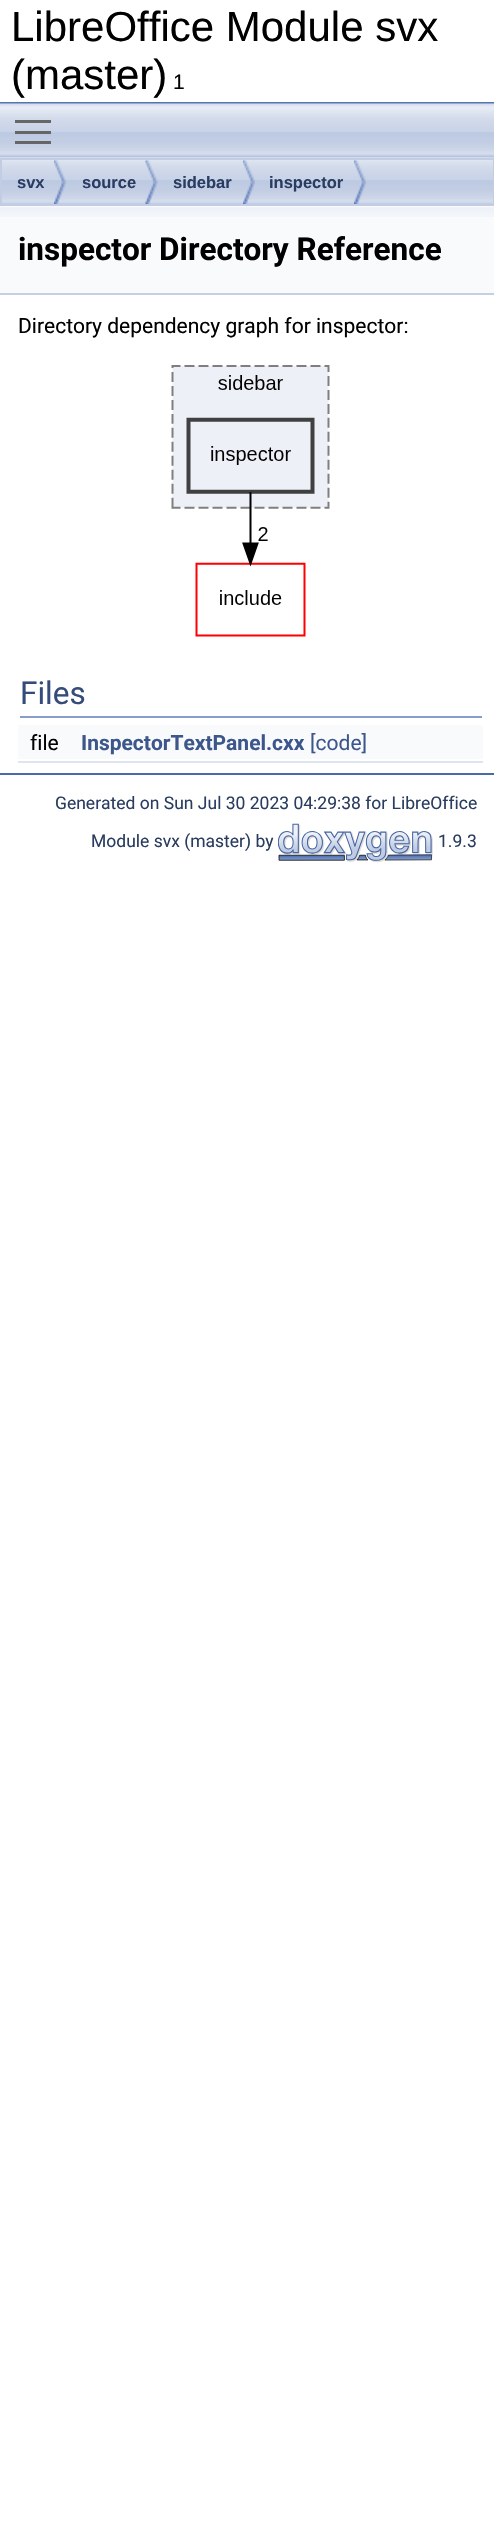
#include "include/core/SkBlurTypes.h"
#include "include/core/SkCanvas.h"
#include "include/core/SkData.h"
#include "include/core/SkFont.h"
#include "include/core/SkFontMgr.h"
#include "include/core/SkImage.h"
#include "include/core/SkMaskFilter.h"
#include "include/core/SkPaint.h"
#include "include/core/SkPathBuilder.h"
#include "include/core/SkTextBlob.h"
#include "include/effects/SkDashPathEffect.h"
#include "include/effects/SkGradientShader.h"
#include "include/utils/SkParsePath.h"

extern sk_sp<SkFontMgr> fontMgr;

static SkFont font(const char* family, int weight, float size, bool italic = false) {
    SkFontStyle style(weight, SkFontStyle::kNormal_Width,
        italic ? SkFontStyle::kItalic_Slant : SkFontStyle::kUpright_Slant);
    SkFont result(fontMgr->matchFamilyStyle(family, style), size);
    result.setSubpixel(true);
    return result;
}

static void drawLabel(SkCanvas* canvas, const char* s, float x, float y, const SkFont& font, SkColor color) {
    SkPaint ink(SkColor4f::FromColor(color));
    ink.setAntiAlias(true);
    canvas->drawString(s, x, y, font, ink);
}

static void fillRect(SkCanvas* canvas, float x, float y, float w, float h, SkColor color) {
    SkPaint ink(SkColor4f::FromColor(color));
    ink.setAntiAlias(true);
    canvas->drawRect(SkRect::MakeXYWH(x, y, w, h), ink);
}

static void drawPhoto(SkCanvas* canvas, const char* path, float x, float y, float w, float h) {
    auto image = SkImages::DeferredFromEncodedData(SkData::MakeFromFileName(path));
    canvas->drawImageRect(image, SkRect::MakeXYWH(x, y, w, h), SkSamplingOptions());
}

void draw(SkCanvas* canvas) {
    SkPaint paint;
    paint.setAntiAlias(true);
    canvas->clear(0xFFFFFFFF);
    fillRect(canvas, 0, 102, 494, 2, 0xFF5373B4);
    SkFont font1 = font("Liberation Sans", 400, 42);
    drawLabel(canvas, "LibreOffice Module svx", 11, 41, font1, 0xFF000000);
    drawLabel(canvas, "(master)", 11, 89, font1, 0xFF000000);
    SkFont font2 = font("Liberation Sans", 400, 21);
    drawLabel(canvas, "1", 173, 89, font2, 0xFF000000);
    drawPhoto(canvas, "assets/img2.png", 0, 157, 494, 47);
    drawPhoto(canvas, "assets/img1.png", 0, 103, 494, 55);
    fillRect(canvas, 15, 131, 36, 3, 0xFF666666);
    fillRect(canvas, 15, 120, 36, 3, 0xFF666666);
    fillRect(canvas, 15, 141, 36, 3, 0xFF666666);
    paint.setStroke(true);
    paint.setStrokeWidth(2);
    paint.setColor(0xFFC2CDE4);
    canvas->drawRect(SkRect::MakeXYWH(1, 159, 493, 46), paint);
    drawPhoto(canvas, "assets/img3.png", 54, 160, 12, 44);
    SkFont font3 = font("Liberation Sans", 700, 16.5f);
    drawLabel(canvas, "svx", 17, 188, font3, 0xFF2A3D61);
    drawPhoto(canvas, "assets/img4.png", 145, 160, 13, 44);
    drawLabel(canvas, "source", 82, 188, font3, 0xFF2A3D61);
    drawPhoto(canvas, "assets/img3.png", 243, 160, 12, 44);
    drawLabel(canvas, "sidebar", 173, 188, font3, 0xFF2A3D61);
    drawPhoto(canvas, "assets/img5.png", 354, 160, 12, 44);
    drawLabel(canvas, "inspector", 269, 188, font3, 0xFF2A3D61);
    fillRect(canvas, 0, 206, 494, 87, 0xFFF9FAFC);
    drawPhoto(canvas, "assets/img6.png", 0, 207, 494, 10);
    fillRect(canvas, 0, 293, 494, 2, 0xFFC4CFE5);
    SkFont font4 = font("Roboto", 700, 31.5f);
    drawLabel(canvas, "inspector Directory Reference", 18, 260, font4, 0xFF000000);
    SkFont font5 = font("Roboto", 400, 21);
    drawLabel(canvas, "Directory dependency graph for inspector:", 18, 333, font5, 0xFF000000);
    drawPhoto(canvas, "assets/img7.png", 171, 365, 159, 272);
    fillRect(canvas, 20, 716, 462, 2, 0xFF879ECB);
    SkFont font6 = font("Roboto", 400, 31.5f);
    drawLabel(canvas, "Files", 20, 704, font6, 0xFF354C7B);
    fillRect(canvas, 18, 725, 465, 34, 0xFFF9FAFC);
    drawLabel(canvas, "file", 30, 750, font5, 0xFF000000);
    SkFont font7 = font("Roboto", 700, 21);
    drawLabel(canvas, "InspectorTextPanel.cxx", 81, 750, font7, 0xFF3D578C);
    drawLabel(canvas, "[code]", 310, 750, font5, 0xFF3D578C);
    fillRect(canvas, 18, 761, 465, 2, 0xFFDEE4F0);
    fillRect(canvas, 0, 773, 494, 2, 0xFF4A6AAA);
    SkFont font8 = font("Roboto", 400, 17.5f);
    drawLabel(canvas, "Generated on Sun Jul 30 2023 04:29:38 for LibreOffice", 55, 809, font8, 0xFF2A3D61);
    drawLabel(canvas, "Module svx (master) by", 91, 847, font8, 0xFF2A3D61);
    drawPhoto(canvas, "assets/img8.png", 278, 823, 155, 40);
    drawLabel(canvas, "1.9.3", 438, 847, font8, 0xFF2A3D61);
}
